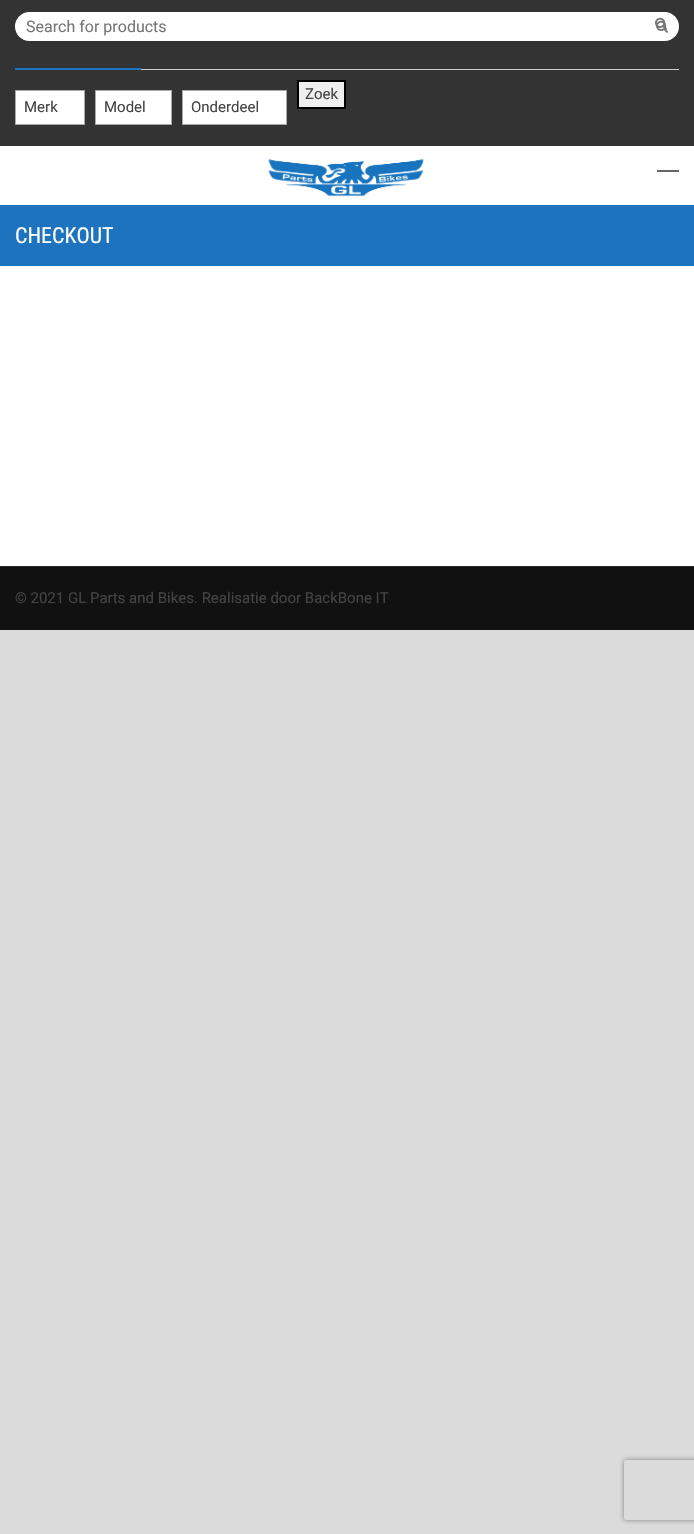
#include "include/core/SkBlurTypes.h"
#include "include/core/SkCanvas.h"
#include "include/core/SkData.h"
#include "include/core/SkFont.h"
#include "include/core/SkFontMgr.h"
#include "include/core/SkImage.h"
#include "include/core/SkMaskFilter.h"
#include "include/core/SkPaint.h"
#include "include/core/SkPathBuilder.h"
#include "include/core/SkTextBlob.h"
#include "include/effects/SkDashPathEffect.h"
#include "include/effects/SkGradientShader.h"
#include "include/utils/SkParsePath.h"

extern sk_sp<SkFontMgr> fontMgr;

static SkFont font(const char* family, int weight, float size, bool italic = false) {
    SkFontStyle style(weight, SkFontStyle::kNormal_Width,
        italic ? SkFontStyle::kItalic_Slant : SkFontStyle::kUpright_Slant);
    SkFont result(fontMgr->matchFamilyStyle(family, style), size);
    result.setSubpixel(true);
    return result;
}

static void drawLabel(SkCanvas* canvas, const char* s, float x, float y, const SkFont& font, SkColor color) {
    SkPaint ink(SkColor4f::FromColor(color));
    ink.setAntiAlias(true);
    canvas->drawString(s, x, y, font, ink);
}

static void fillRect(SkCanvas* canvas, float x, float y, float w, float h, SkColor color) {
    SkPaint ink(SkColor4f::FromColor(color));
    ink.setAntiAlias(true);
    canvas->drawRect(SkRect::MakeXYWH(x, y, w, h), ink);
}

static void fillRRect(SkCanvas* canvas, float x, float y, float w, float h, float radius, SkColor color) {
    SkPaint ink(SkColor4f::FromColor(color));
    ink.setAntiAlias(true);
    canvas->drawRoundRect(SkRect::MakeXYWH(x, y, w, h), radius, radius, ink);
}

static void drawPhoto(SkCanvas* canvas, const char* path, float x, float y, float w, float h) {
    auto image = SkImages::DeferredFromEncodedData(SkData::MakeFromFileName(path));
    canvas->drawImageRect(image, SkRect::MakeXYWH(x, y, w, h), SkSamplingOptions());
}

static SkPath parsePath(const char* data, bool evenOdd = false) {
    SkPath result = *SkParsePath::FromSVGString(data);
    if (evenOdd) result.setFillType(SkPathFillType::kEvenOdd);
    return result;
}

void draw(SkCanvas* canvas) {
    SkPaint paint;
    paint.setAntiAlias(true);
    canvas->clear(0xFFDBDBDB);
    fillRect(canvas, 0, 146, 694, 420, 0xFFFFFFFF);
    fillRect(canvas, 0, 0, 694, 146, 0xFF333333);
    fillRRect(canvas, 15, 12, 664, 29, 14.5f, 0xFFFFFFFF);
    SkFont font1 = font("Roboto", 400, 16);
    drawLabel(canvas, "Search for products", 26, 32, font1, 0xFF757575);
    drawPhoto(canvas, "assets/img2.png", 655, 17, 12, 13);
    drawPhoto(canvas, "assets/img1.png", 656, 20, 12, 13);
    fillRect(canvas, 141, 69, 538, 1, 0xFFCCCCCC);
    fillRect(canvas, 15, 68, 126, 2, 0xFF1E73BE);
    paint.setColor(0xFFEFEFEF);
    canvas->drawRect(SkRect::MakeXYWH(298, 81, 47, 27), paint);
    paint.setStroke(true);
    paint.setStrokeWidth(2);
    paint.setColor(0xFF000000);
    canvas->drawRect(SkRect::MakeXYWH(298, 81, 47, 27), paint);
    SkFont font2 = font("Roboto", 400, 15);
    drawLabel(canvas, "Zoek", 305, 99, font2, 0xFF444444);
    paint.setStroke(false);
    paint.setColor(0xFFFFFFFF);
    canvas->drawRect(SkRect::MakeXYWH(15.5f, 90.5f, 69, 34), paint);
    paint.setStroke(true);
    paint.setStrokeWidth(1);
    paint.setColor(0xFFAAAAAA);
    canvas->drawRect(SkRect::MakeXYWH(15.5f, 90.5f, 69, 34), paint);
    drawLabel(canvas, "Merk", 24, 112, font2, 0xFF444444);
    paint.setStroke(false);
    paint.setColor(0xFFFFFFFF);
    canvas->drawRect(SkRect::MakeXYWH(95.5f, 90.5f, 76, 34), paint);
    paint.setStroke(true);
    paint.setColor(0xFFAAAAAA);
    canvas->drawRect(SkRect::MakeXYWH(95.5f, 90.5f, 76, 34), paint);
    drawLabel(canvas, "Model", 104, 112, font2, 0xFF444444);
    paint.setStroke(false);
    paint.setColor(0xFFFFFFFF);
    canvas->drawRect(SkRect::MakeXYWH(182.5f, 90.5f, 104, 34), paint);
    paint.setStroke(true);
    paint.setColor(0xFFAAAAAA);
    canvas->drawRect(SkRect::MakeXYWH(182.5f, 90.5f, 104, 34), paint);
    drawLabel(canvas, "Onderdeel", 191, 112, font2, 0xFF444444);
    drawPhoto(canvas, "assets/img3.png", 268, 159, 156, 38);
    fillRect(canvas, 657, 170, 22, 2, 0xFF666666);
    fillRect(canvas, 0, 205, 694, 61, 0xFF1E73BE);
    SkFont font3 = font("Roboto Condensed", 400, 22);
    drawLabel(canvas, "CHECKOUT", 15, 243, font3, 0xFFFFFFFF);
    fillRect(canvas, 0, 567, 694, 63, 0xFF111111);
    fillRect(canvas, 0, 566, 694, 1, 0xFF292929);
    drawLabel(canvas, "© 2021 GL Parts and Bikes. Realisatie door BackBone IT", 15, 603, font2, 0xFF444444);
    canvas->save();
    canvas->clipPath(parsePath("M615 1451H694V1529H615ZM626 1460H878C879 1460 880 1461 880 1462V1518C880 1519 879 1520 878 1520H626C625 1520 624 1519 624 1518V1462C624 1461 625 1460 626 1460Z", true), true);
    paint.setStroke(false);
    paint.setColor(0xFF808080);
    paint.setMaskFilter(SkMaskFilter::MakeBlur(kNormal_SkBlurStyle, 2.5f));
    canvas->drawRoundRect(SkRect::MakeXYWH(624, 1460, 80, 60), 2, 2, paint);
    paint.setMaskFilter(nullptr);
    canvas->restore();
}
